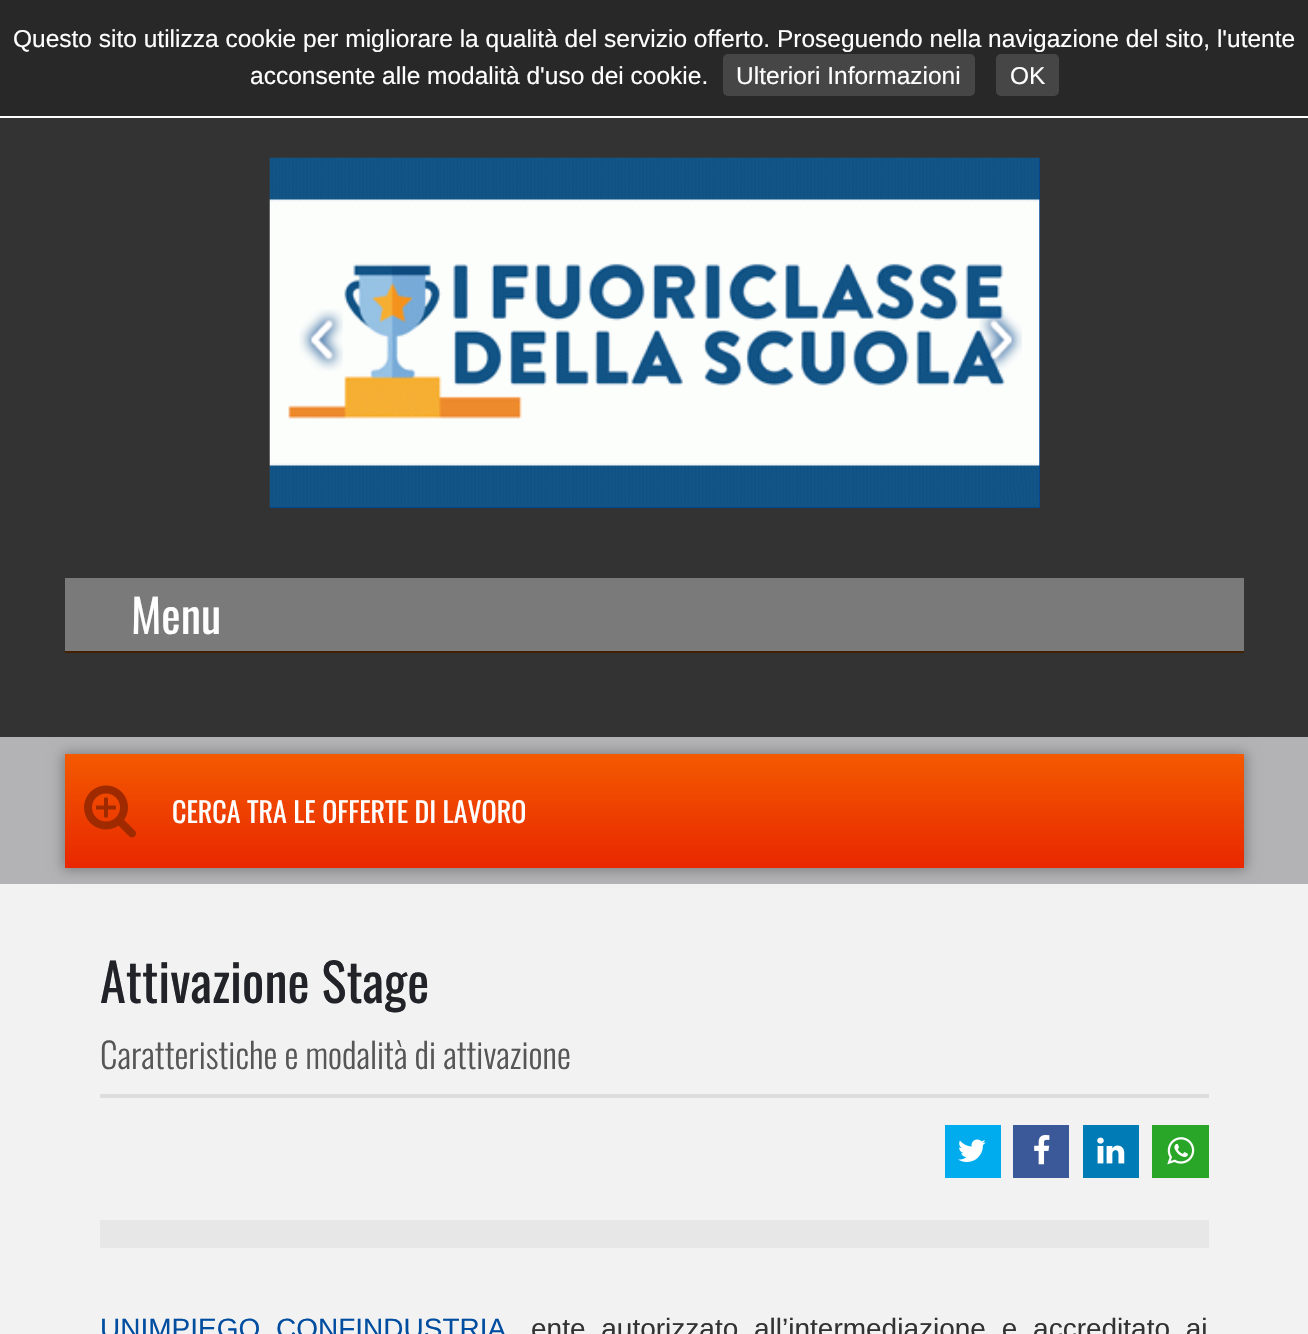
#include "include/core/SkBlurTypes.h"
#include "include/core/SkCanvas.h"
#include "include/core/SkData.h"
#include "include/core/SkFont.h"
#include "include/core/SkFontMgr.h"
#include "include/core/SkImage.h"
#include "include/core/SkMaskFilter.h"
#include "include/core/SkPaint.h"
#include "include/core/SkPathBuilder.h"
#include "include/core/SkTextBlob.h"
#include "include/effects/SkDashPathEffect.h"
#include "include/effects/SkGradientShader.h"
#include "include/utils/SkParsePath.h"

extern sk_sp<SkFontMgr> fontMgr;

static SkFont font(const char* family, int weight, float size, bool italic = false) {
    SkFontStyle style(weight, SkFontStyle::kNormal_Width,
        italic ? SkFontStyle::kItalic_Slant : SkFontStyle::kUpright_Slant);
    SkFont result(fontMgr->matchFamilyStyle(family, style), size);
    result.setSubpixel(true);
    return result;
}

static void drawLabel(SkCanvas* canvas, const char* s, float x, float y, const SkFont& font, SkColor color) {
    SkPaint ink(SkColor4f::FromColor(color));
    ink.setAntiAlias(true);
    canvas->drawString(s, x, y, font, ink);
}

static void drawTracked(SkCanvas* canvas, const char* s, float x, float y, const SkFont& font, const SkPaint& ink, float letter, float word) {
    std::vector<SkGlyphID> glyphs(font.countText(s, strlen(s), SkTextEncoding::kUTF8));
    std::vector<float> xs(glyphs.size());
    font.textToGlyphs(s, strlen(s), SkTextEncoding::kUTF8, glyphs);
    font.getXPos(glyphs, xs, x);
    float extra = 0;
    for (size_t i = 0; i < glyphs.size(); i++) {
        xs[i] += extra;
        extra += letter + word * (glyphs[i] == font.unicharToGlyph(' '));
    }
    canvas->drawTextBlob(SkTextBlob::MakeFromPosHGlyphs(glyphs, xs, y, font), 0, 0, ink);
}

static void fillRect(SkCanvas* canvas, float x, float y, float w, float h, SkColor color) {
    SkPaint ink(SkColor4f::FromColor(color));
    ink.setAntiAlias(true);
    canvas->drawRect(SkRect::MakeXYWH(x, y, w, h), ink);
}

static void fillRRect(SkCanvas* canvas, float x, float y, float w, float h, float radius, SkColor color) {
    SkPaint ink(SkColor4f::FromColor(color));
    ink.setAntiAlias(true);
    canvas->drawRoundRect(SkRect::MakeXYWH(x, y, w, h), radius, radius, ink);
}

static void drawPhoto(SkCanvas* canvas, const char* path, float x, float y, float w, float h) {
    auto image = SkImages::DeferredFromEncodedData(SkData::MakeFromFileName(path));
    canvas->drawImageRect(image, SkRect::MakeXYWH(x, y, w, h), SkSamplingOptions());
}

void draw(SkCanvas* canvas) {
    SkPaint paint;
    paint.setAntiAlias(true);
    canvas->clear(0xFF333333);
    fillRect(canvas, 0, 0, 1308, 116, 0xFF282828);
    fillRect(canvas, 0, 116, 1308, 2, 0xFFFFFFFF);
    SkFont font1 = font("Liberation Sans", 400, 24.5f);
    drawLabel(canvas, "Questo sito utilizza cookie per migliorare la qualità del servizio offerto. Proseguendo nella navigazione del sito, l'utente", 13, 47, font1, 0xFFFFFFFF);
    drawLabel(canvas, "acconsente alle modalità d'uso dei cookie.", 250, 84, font1, 0xFFFFFFFF);
    fillRRect(canvas, 723, 54, 252, 42, 5, 0xFF464646);
    drawLabel(canvas, "Ulteriori Informazioni", 736, 84, font1, 0xFFFFFFFF);
    fillRRect(canvas, 996, 54, 63, 42, 5, 0xFF464646);
    drawLabel(canvas, "OK", 1010, 84, font1, 0xFFFFFFFF);
    fillRect(canvas, 270, 158, 770, 350, 0xFF004490);
    drawPhoto(canvas, "assets/img1.png", 269, 157, 771, 351);
    drawPhoto(canvas, "assets/img2.png", 299, 309, 44, 62);
    drawPhoto(canvas, "assets/img3.png", 979, 310, 43, 61);
    fillRect(canvas, 65, 578, 1179, 73, 0xFF7A7A7A);
    fillRect(canvas, 65, 651, 1179, 2, 0xFF422100);
    SkFont font2 = font("Oswald", 400, 46);
    drawLabel(canvas, "Menu", 131, 634, font2, 0xFFFFFFFF);
    fillRect(canvas, 0, 737, 1308, 147, 0xFFB3B3B5);
    fillRect(canvas, 0, 884, 1308, 450, 0xFFF2F2F2);
    paint.setColor(0x4D000000);
    paint.setMaskFilter(SkMaskFilter::MakeBlur(kNormal_SkBlurStyle, 6));
    canvas->drawRect(SkRect::MakeXYWH(63, 753, 1183, 117), paint);
    paint.setMaskFilter(nullptr);
    {
        const SkColor colors[] = {0xFFF35A00, 0xFFE92800};
        const float stops[] = {0, 1};
        const SkPoint ends[] = {{655, 754}, {655, 866}};
        paint.setShader(SkGradientShader::MakeLinear(ends, colors, stops, 2, SkTileMode::kClamp));
        paint.setAlpha(255);
    }
    canvas->drawRect(SkRect::MakeXYWH(65, 754, 1179, 112), paint);
    fillRect(canvas, 65, 866, 1179, 2, 0xFFE92800);
    drawPhoto(canvas, "assets/img4.png", 84, 785, 52, 53);
    SkFont font3 = font("Oswald", 400, 28);
    drawLabel(canvas, "CERCA TRA LE OFFERTE DI LAVORO", 172, 823, font3, 0xFFFFFFFF);
    SkFont font4 = font("Oswald", 400, 52.5f);
    drawLabel(canvas, "Attivazione Stage", 100, 1003, font4, 0xFF212328);
    SkFont font5 = font("Oswald", 300, 35);
    drawLabel(canvas, "Caratteristiche e modalità di attivazione", 100, 1069, font5, 0xFF575656);
    fillRect(canvas, 100, 1094, 1109, 4, 0xFFDDDDDD);
    fillRect(canvas, 945, 1125, 56, 53, 0xFF00ACED);
    drawPhoto(canvas, "assets/img5.png", 958, 1139, 28, 23);
    fillRect(canvas, 1013, 1125, 56, 53, 0xFF3B5998);
    drawPhoto(canvas, "assets/img6.png", 1034, 1135, 16, 30);
    fillRect(canvas, 1083, 1125, 56, 53, 0xFF007BB6);
    drawPhoto(canvas, "assets/img7.png", 1097, 1137, 28, 27);
    fillRect(canvas, 1152, 1125, 57, 53, 0xFF29A628);
    drawPhoto(canvas, "assets/img8.png", 1167, 1137, 28, 28);
    fillRect(canvas, 100, 1220, 1109, 28, 0xFFE7E7E8);
    SkFont font6 = font("Liberation Sans", 400, 28);
    paint.setShader(nullptr);
    paint.setColor(0xFF004DA0);
    drawTracked(canvas, "UNIMPIEGO CONFINDUSTRIA", 100, 1338, font6, paint, 0, 8);
    paint.setColor(0xFF333333);
    drawTracked(canvas, "ente autorizzato all’intermediazione e accreditato ai", 531, 1338, font6, paint, 0, 8);
}
